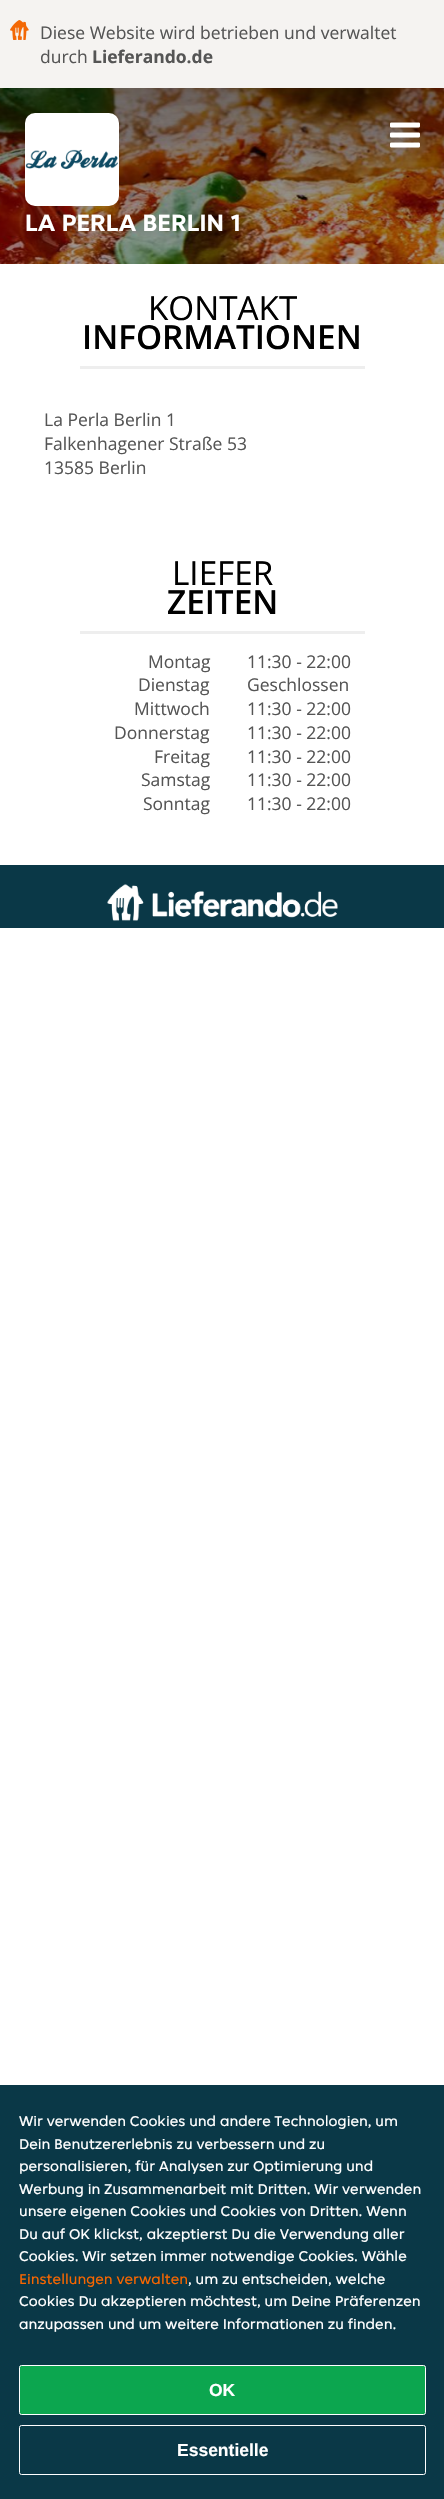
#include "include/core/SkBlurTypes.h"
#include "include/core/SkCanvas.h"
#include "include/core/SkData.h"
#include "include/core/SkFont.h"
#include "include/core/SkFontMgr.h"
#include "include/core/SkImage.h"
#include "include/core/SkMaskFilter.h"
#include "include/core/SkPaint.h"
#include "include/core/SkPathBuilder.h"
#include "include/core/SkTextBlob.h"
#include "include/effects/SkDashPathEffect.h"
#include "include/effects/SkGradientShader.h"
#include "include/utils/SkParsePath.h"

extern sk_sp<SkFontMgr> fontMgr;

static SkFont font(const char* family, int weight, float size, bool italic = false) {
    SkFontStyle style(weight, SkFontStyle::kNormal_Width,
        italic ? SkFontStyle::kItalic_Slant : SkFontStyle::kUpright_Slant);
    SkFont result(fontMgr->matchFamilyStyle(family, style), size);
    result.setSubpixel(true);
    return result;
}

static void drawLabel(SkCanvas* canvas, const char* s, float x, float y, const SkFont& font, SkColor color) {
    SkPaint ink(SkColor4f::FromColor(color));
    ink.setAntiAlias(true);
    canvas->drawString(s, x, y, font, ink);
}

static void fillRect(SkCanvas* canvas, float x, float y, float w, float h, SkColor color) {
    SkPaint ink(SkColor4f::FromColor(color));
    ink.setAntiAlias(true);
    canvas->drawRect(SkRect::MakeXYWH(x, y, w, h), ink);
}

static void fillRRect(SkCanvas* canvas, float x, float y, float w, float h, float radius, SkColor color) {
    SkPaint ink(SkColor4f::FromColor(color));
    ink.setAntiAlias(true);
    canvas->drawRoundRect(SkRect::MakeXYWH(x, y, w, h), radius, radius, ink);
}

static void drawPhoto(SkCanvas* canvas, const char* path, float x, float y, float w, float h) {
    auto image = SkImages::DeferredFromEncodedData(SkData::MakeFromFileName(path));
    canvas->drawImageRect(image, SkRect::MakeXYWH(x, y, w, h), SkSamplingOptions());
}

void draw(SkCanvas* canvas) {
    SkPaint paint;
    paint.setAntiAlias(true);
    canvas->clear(0xFFFFFFFF);
    fillRect(canvas, 0, 0, 444, 88, 0xFFF5F3F1);
    drawPhoto(canvas, "assets/img1.png", 10, 20, 19, 20);
    SkFont font1 = font("Open Sans", 400, 17.5f);
    drawLabel(canvas, "Diese Website wird betrieben und verwaltet", 40, 39, font1, 0xFF555555);
    drawLabel(canvas, "durch", 40, 63, font1, 0xFF555555);
    SkFont font2 = font("Open Sans", 700, 17.5f);
    drawLabel(canvas, "Lieferando.de", 92, 63, font2, 0xFF555555);
    drawPhoto(canvas, "assets/img2.png", 0, 88, 444, 176);
    {
        const SkColor colors[] = {0xB3000000, 0x66000000, 0x33000000, 0x00000000};
        const float stops[] = {0, 0.33f, 0.67f, 1};
        const SkPoint ends[] = {{222, 0}, {223, 625}};
        paint.setShader(SkGradientShader::MakeLinear(ends, colors, stops, 4, SkTileMode::kClamp));
        paint.setAlpha(255);
    }
    canvas->drawRect(SkRect::MakeXYWH(0, 88, 444, 176), paint);
    drawPhoto(canvas, "assets/img3.png", 390, 122, 30, 26);
    fillRRect(canvas, 25, 113, 94, 93, 10, 0xFFFFFFFF);
    drawPhoto(canvas, "assets/img4.png", 25, 149, 93, 20);
    SkFont font3 = font("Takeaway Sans", 700, 25);
    drawLabel(canvas, "LA PERLA BERLIN 1", 25, 231, font3, 0xFFFFFFFF);
    SkFont font4 = font("Open Sans", 400, 33.25f);
    drawLabel(canvas, "KONTAKT", 148, 320, font4, 0xFF000000);
    SkFont font5 = font("Open Sans", 600, 33.25f);
    drawLabel(canvas, "INFORMATIONEN", 82, 349, font5, 0xFF000000);
    fillRect(canvas, 80, 366, 285, 3, 0xFFEEEEEE);
    drawLabel(canvas, "La Perla Berlin 1", 44, 426, font1, 0xFF555555);
    drawLabel(canvas, "Falkenhagener Straße 53", 44, 450, font1, 0xFF555555);
    drawLabel(canvas, "13585 Berlin", 44, 474, font1, 0xFF555555);
    drawLabel(canvas, "LIEFER", 172, 585, font4, 0xFF000000);
    drawLabel(canvas, "ZEITEN", 167, 614, font5, 0xFF000000);
    fillRect(canvas, 80, 631, 285, 3, 0xFFEEEEEE);
    drawLabel(canvas, "Montag", 148, 668, font1, 0xFF555555);
    drawLabel(canvas, "11:30 - 22:00", 247, 668, font1, 0xFF555555);
    drawLabel(canvas, "Dienstag", 138, 691, font1, 0xFF555555);
    drawLabel(canvas, "Geschlossen", 247, 691, font1, 0xFF555555);
    drawLabel(canvas, "Mittwoch", 134, 715, font1, 0xFF555555);
    drawLabel(canvas, "11:30 - 22:00", 247, 715, font1, 0xFF555555);
    drawLabel(canvas, "Donnerstag", 114, 739, font1, 0xFF555555);
    drawLabel(canvas, "11:30 - 22:00", 247, 739, font1, 0xFF555555);
    drawLabel(canvas, "Freitag", 154, 763, font1, 0xFF555555);
    drawLabel(canvas, "11:30 - 22:00", 247, 763, font1, 0xFF555555);
    drawLabel(canvas, "Samstag", 141, 786, font1, 0xFF555555);
    drawLabel(canvas, "11:30 - 22:00", 247, 786, font1, 0xFF555555);
    drawLabel(canvas, "Sonntag", 143, 810, font1, 0xFF555555);
    drawLabel(canvas, "11:30 - 22:00", 247, 810, font1, 0xFF555555);
    fillRect(canvas, 0, 865, 444, 63, 0xFF0A3847);
    drawPhoto(canvas, "assets/img5.png", 107, 884, 231, 37);
    fillRect(canvas, 0, 2085, 444, 414, 0xFF0A3847);
    SkFont font6 = font("Takeaway Sans", 400, 15);
    drawLabel(canvas, "Wir verwenden Cookies und andere Technologien, um", 19, 2126, font6, 0xFFFFFFFF);
    drawLabel(canvas, "Dein Benutzererlebnis zu verbessern und zu", 19, 2149, font6, 0xFFFFFFFF);
    drawLabel(canvas, "personalisieren, für Analysen zur Optimierung und", 19, 2171, font6, 0xFFFFFFFF);
    drawLabel(canvas, "Werbung in Zusammenarbeit mit Dritten. Wir verwenden", 19, 2194, font6, 0xFFFFFFFF);
    drawLabel(canvas, "unsere eigenen Cookies und Cookies von Dritten. Wenn", 19, 2216, font6, 0xFFFFFFFF);
    drawLabel(canvas, "Du auf OK klickst, akzeptierst Du die Verwendung aller", 19, 2239, font6, 0xFFFFFFFF);
    drawLabel(canvas, "Cookies. Wir setzen immer notwendige Cookies. Wähle", 19, 2261, font6, 0xFFFFFFFF);
    drawLabel(canvas, "Einstellungen verwalten", 19, 2284, font6, 0xFFF86600);
    drawLabel(canvas, ", um zu entscheiden, welche", 188, 2284, font6, 0xFFFFFFFF);
    drawLabel(canvas, "Cookies Du akzeptieren möchtest, um Deine Präferenzen", 19, 2306, font6, 0xFFFFFFFF);
    drawLabel(canvas, "anzupassen und um weitere Informationen zu finden.", 19, 2329, font6, 0xFFFFFFFF);
    paint.setShader(nullptr);
    paint.setColor(0xFF0CA64F);
    canvas->drawRoundRect(SkRect::MakeXYWH(19.5f, 2365.5f, 406, 49), 2, 2, paint);
    paint.setStroke(true);
    paint.setStrokeWidth(1);
    paint.setColor(0xFFFFFFFF);
    canvas->drawRoundRect(SkRect::MakeXYWH(19.5f, 2365.5f, 406, 49), 2, 2, paint);
    SkFont font7 = font("Liberation Sans", 700, 17.5f);
    drawLabel(canvas, "OK", 209, 2396, font7, 0xFFFFFFFF);
    canvas->drawRoundRect(SkRect::MakeXYWH(19.5f, 2425.5f, 406, 49), 2, 2, paint);
    drawLabel(canvas, "Essentielle", 177, 2456, font7, 0xFFFFFFFF);
}
